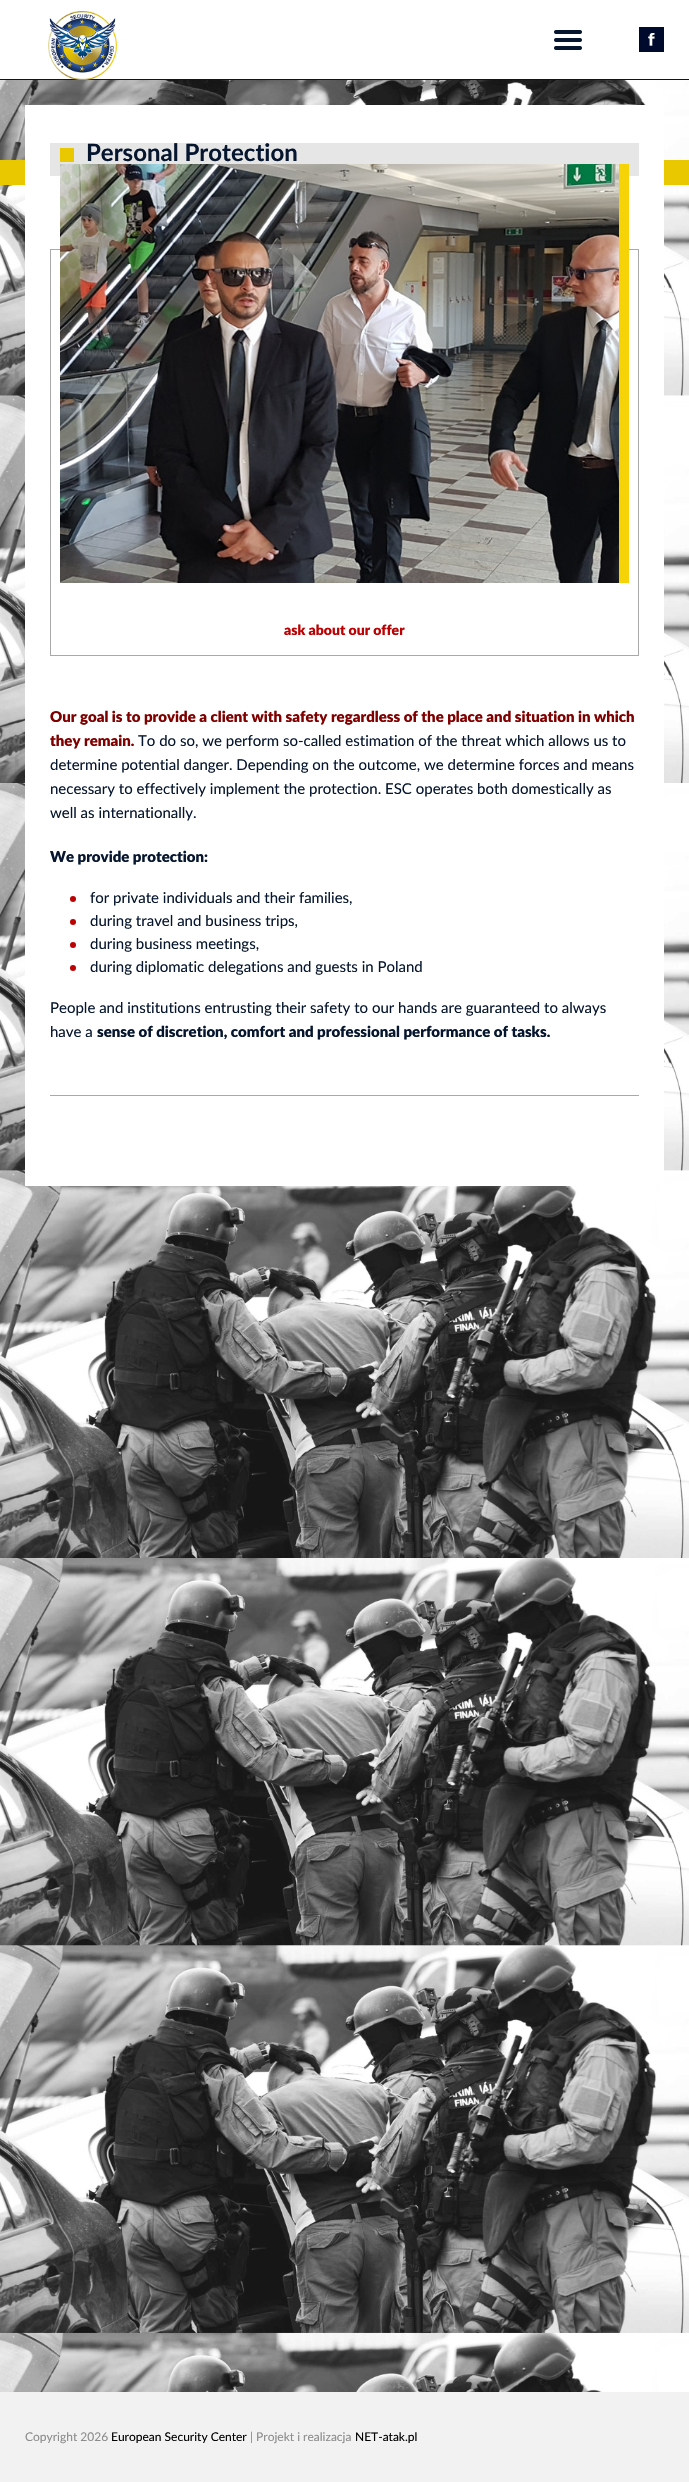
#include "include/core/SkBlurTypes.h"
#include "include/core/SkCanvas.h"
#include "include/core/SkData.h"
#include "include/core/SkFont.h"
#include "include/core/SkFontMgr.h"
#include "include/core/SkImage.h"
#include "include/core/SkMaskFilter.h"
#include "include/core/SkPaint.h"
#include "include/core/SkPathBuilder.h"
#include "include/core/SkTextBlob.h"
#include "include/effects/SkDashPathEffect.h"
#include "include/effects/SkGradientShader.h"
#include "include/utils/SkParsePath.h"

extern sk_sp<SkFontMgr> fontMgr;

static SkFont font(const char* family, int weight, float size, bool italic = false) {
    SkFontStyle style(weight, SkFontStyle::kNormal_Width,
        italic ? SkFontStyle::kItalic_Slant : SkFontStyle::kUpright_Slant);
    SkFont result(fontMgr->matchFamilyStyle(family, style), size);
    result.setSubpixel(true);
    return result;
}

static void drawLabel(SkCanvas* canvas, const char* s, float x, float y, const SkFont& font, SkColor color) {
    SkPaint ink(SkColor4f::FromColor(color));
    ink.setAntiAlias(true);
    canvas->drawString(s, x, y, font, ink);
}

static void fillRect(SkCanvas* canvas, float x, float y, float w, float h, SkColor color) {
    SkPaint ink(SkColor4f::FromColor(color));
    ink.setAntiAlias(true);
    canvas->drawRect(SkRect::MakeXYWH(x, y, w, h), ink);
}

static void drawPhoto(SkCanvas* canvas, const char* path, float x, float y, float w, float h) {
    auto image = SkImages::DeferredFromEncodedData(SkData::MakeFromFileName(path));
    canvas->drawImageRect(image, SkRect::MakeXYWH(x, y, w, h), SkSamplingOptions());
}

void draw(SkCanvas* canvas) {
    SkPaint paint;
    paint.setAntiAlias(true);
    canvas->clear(0xFFFFFFFF);
    fillRect(canvas, 0, 79, 689, 1, 0xFF06162F);
    drawPhoto(canvas, "assets/img1.png", 48, 11, 69, 69);
    drawPhoto(canvas, "assets/img2.png", 554, 30, 28, 20);
    drawPhoto(canvas, "assets/img3.png", 639, 27, 25, 25);
    drawPhoto(canvas, "assets/img4.png", 0, 80, 689, 2312);
    fillRect(canvas, 0, 160, 689, 25, 0xFFEAC800);
    fillRect(canvas, 25, 105, 639, 1081, 0xFFFFFFFF);
    fillRect(canvas, 50, 143, 589, 33, 0xFFE6E6E6);
    fillRect(canvas, 60, 148, 14, 14, 0xFFE9C801);
    SkFont font1 = font("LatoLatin", 700, 24);
    drawLabel(canvas, "Personal Protection", 86, 161, font1, 0xFF06162F);
    paint.setStroke(true);
    paint.setStrokeWidth(1);
    paint.setColor(0xFFA9A9A9);
    canvas->drawRect(SkRect::MakeXYWH(50.5f, 249.5f, 588, 406), paint);
    drawPhoto(canvas, "assets/img5.png", 60, 164, 559, 419);
    fillRect(canvas, 619, 164, 10, 419, 0xFFF6D306);
    SkFont font2 = font("LatoLatin", 900, 14);
    drawLabel(canvas, "ask about our offer", 284, 635, font2, 0xFFBB0102);
    SkFont font3 = font("LatoLatin", 900, 15);
    drawLabel(canvas, "Our goal is to provide a client with safety regardless of the place and situation in which", 50, 722, font3, 0xFF800000);
    drawLabel(canvas, "they remain.", 50, 746, font3, 0xFF800000);
    SkFont font4 = font("LatoLatin", 400, 15);
    drawLabel(canvas, "To do so, we perform so-called estimation of the threat which allows us to", 138, 746, font4, 0xFF06162F);
    drawLabel(canvas, "determine potential danger. Depending on the outcome, we determine forces and means", 50, 770, font4, 0xFF06162F);
    drawLabel(canvas, "necessary to effectively implement the protection. ESC operates both domestically as", 50, 794, font4, 0xFF06162F);
    drawLabel(canvas, "well as internationally.", 50, 818, font4, 0xFF06162F);
    drawLabel(canvas, "We provide protection:", 50, 862, font3, 0xFF06162F);
    paint.setStroke(false);
    paint.setColor(0xFFBB0102);
    canvas->drawCircle(73, 899, 3, paint);
    drawLabel(canvas, "for private individuals and their families,", 90, 903, font4, 0xFF06162F);
    canvas->drawCircle(73, 922, 3, paint);
    drawLabel(canvas, "during travel and business trips,", 90, 926, font4, 0xFF06162F);
    canvas->drawCircle(73, 945, 3, paint);
    drawLabel(canvas, "during business meetings,", 90, 949, font4, 0xFF06162F);
    canvas->drawCircle(73, 968, 3, paint);
    drawLabel(canvas, "during diplomatic delegations and guests in Poland", 90, 972, font4, 0xFF06162F);
    drawLabel(canvas, "People and institutions entrusting their safety to our hands are guaranteed to always", 50, 1013, font4, 0xFF06162F);
    drawLabel(canvas, "have a", 50, 1037, font4, 0xFF06162F);
    drawLabel(canvas, "sense of discretion, comfort and professional performance of tasks.", 97, 1037, font3, 0xFF06162F);
    fillRect(canvas, 50, 1095, 589, 1, 0xFFA9A9A9);
    fillRect(canvas, 0, 2392, 689, 90, 0xFFF2F2F2);
    SkFont font5 = font("LatoLatin", 400, 12);
    drawLabel(canvas, "Copyright 2026", 25, 2441, font5, 0xFF8C8C8C);
    drawLabel(canvas, "European Security Center", 111, 2441, font5, 0xFF000000);
    drawLabel(canvas, "| Projekt i realizacja", 250, 2441, font5, 0xFF8C8C8C);
    drawLabel(canvas, "NET-atak.pl", 355, 2441, font5, 0xFF000000);
}
